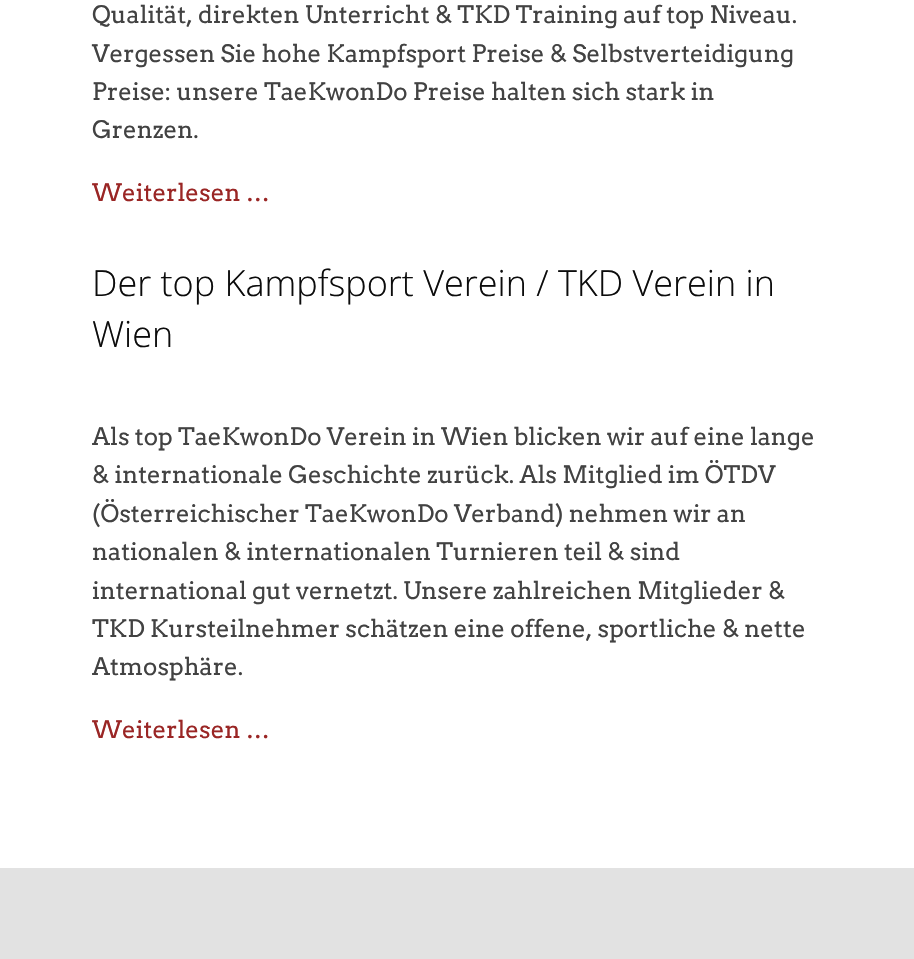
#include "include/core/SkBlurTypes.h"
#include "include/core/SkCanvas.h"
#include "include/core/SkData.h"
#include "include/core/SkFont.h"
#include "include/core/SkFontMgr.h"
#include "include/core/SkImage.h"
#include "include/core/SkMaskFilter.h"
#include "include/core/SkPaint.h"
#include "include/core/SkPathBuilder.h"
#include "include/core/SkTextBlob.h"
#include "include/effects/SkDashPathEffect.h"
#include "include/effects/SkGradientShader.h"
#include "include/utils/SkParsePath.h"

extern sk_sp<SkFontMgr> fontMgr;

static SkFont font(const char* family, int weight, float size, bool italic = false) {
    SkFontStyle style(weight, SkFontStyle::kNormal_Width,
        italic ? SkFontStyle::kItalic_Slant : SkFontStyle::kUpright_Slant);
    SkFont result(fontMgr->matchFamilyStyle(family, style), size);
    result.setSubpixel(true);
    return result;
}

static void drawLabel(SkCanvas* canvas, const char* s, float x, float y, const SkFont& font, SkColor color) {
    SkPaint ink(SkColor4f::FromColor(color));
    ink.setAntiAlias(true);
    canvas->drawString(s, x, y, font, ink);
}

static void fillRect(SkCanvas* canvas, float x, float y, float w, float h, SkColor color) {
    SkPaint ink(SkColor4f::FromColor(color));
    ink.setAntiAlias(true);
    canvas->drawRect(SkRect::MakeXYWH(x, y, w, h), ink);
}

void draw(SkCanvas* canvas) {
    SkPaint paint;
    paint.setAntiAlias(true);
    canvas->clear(0xFFFFFFFF);
    SkFont font1 = font("Arvo", 400, 24);
    drawLabel(canvas, "Qualität, direkten Unterricht & TKD Training auf top Niveau.", 92, 23, font1, 0xFF424242);
    drawLabel(canvas, "Vergessen Sie hohe Kampfsport Preise & Selbstverteidigung", 92, 62, font1, 0xFF424242);
    drawLabel(canvas, "Preise: unsere TaeKwonDo Preise halten sich stark in", 92, 100, font1, 0xFF424242);
    drawLabel(canvas, "Grenzen.", 92, 138, font1, 0xFF424242);
    drawLabel(canvas, "Weiterlesen …", 92, 201, font1, 0xFF9A2625);
    SkFont font2 = font("Open Sans", 300, 36);
    drawLabel(canvas, "Der top Kampfsport Verein / TKD Verein in", 92, 296, font2, 0xFF0C0C0C);
    drawLabel(canvas, "Wien", 92, 347, font2, 0xFF0C0C0C);
    drawLabel(canvas, "Als top TaeKwonDo Verein in Wien blicken wir auf eine lange", 92, 445, font1, 0xFF424242);
    drawLabel(canvas, "& internationale Geschichte zurück. Als Mitglied im ÖTDV", 92, 483, font1, 0xFF424242);
    drawLabel(canvas, "(Österreichischer TaeKwonDo Verband) nehmen wir an", 92, 522, font1, 0xFF424242);
    drawLabel(canvas, "nationalen & internationalen Turnieren teil & sind", 92, 560, font1, 0xFF424242);
    drawLabel(canvas, "international gut vernetzt. Unsere zahlreichen Mitglieder &", 92, 599, font1, 0xFF424242);
    drawLabel(canvas, "TKD Kursteilnehmer schätzen eine offene, sportliche & nette", 92, 637, font1, 0xFF424242);
    drawLabel(canvas, "Atmosphäre.", 92, 675, font1, 0xFF424242);
    drawLabel(canvas, "Weiterlesen …", 92, 738, font1, 0xFF9A2625);
    fillRect(canvas, 0, 868, 914, 91, 0xFFE2E2E2);
}
